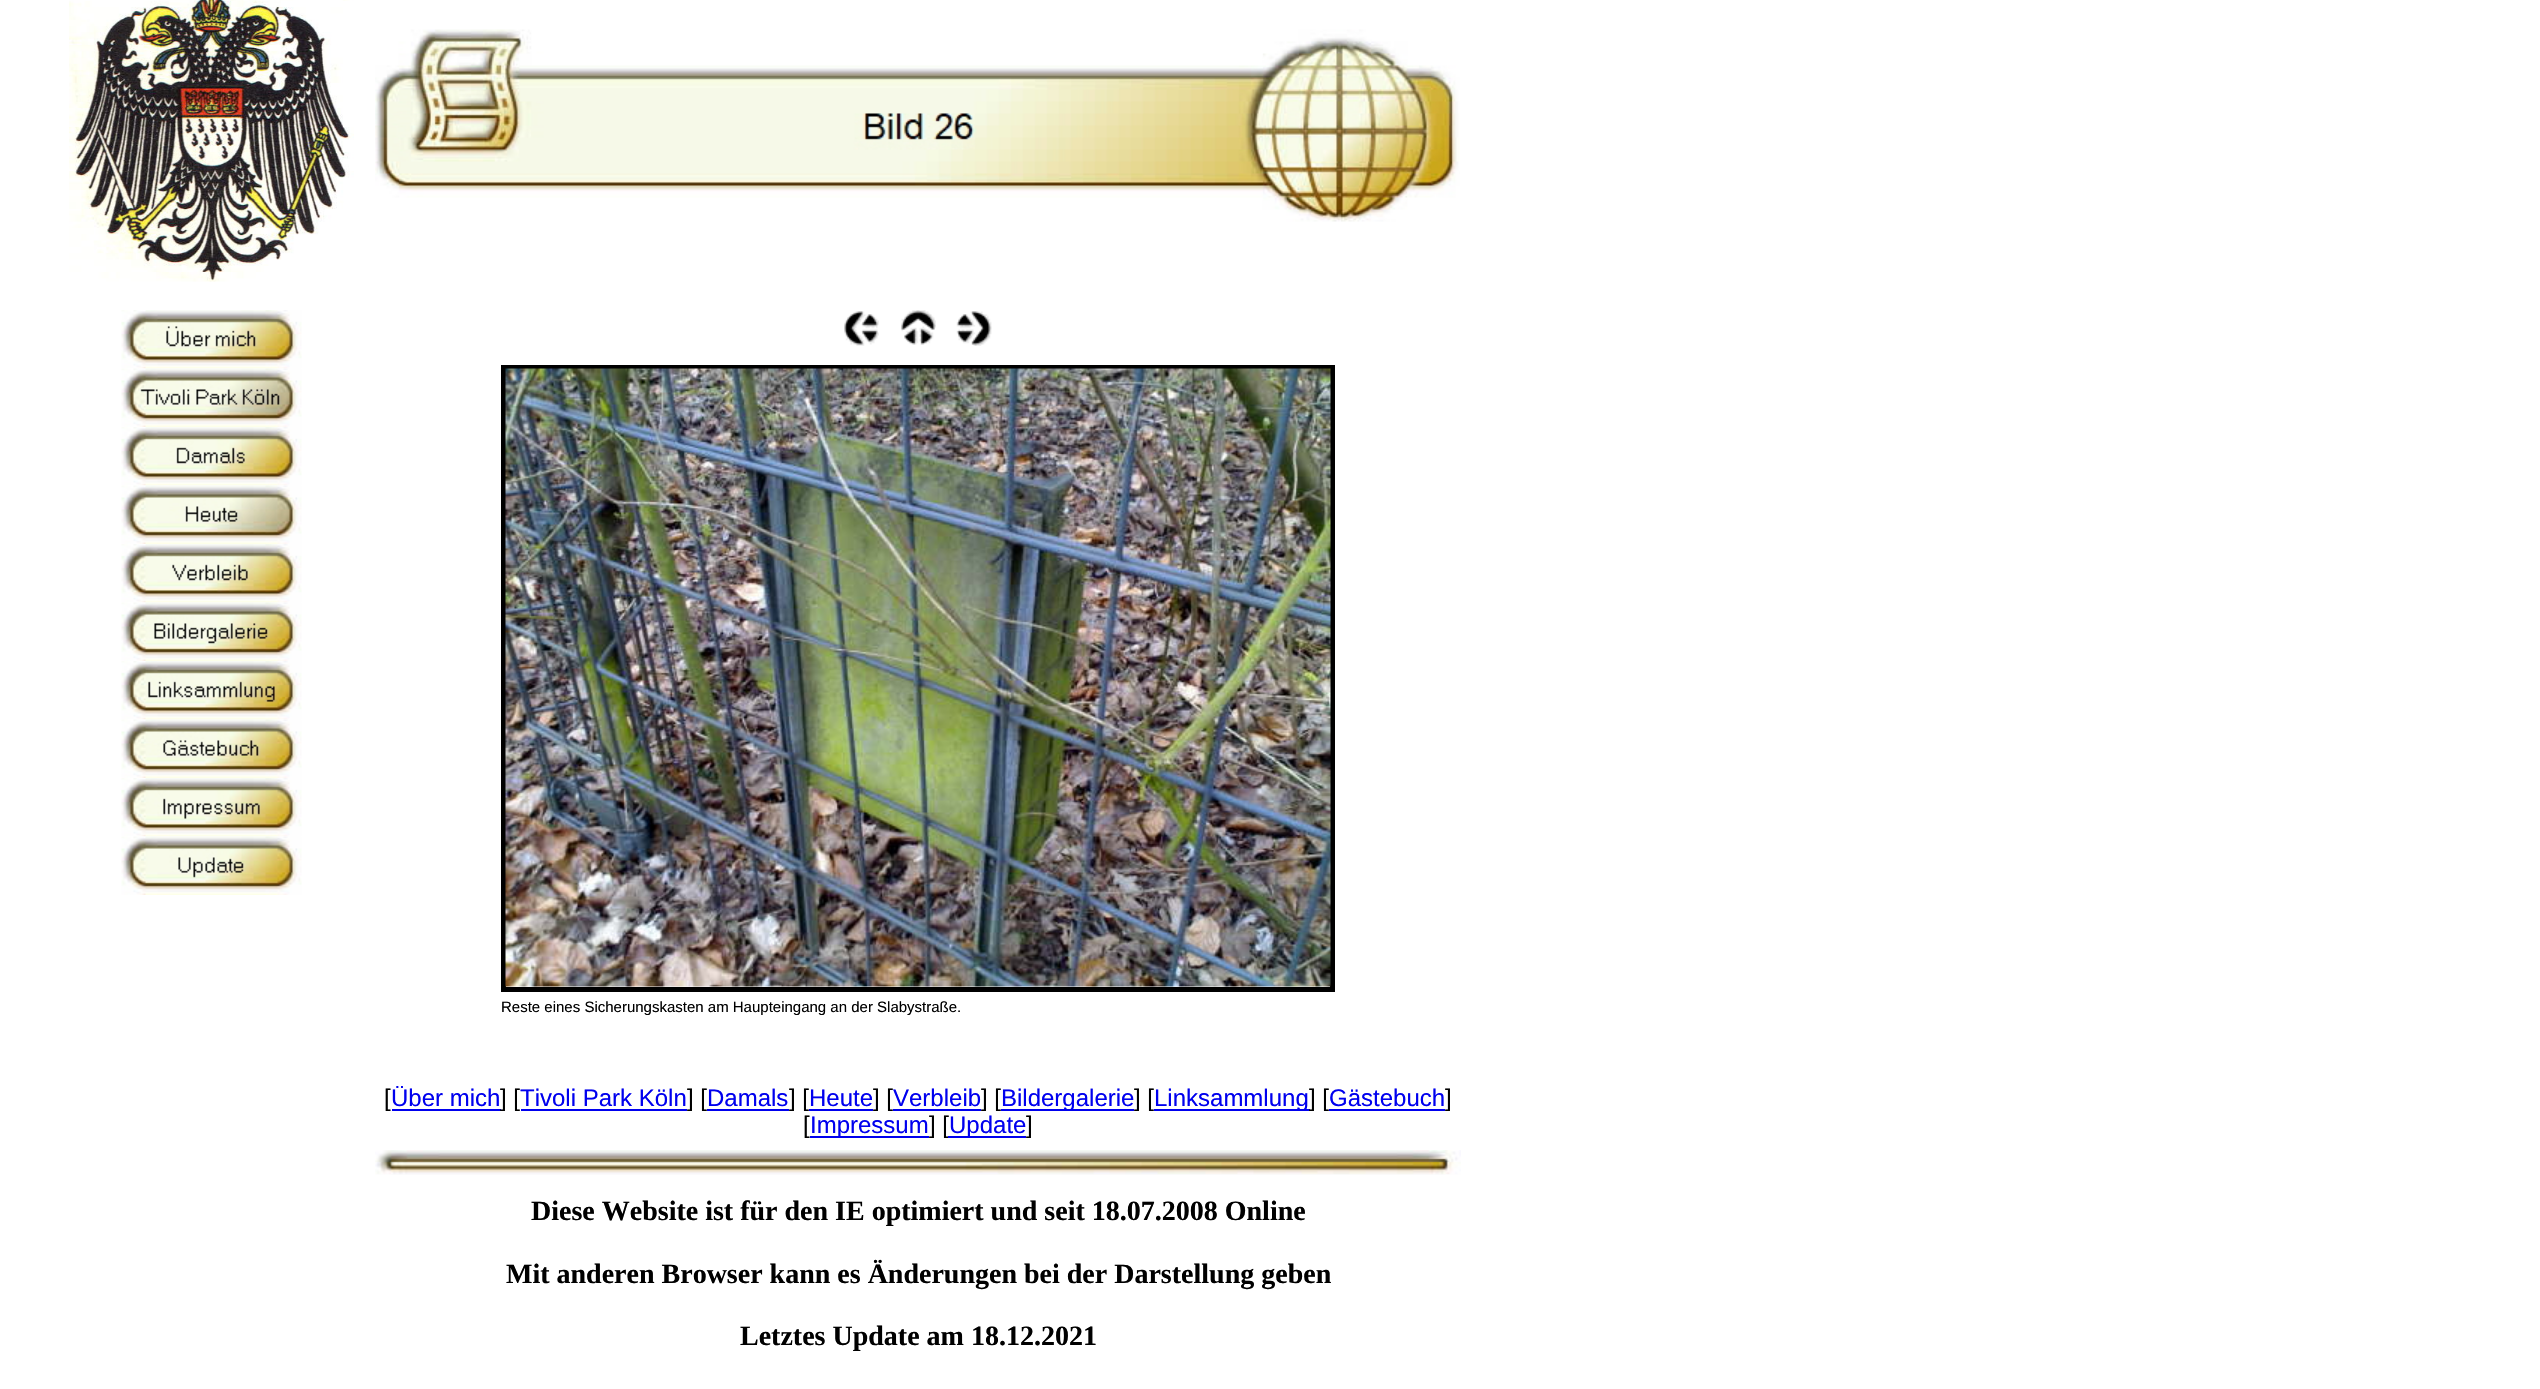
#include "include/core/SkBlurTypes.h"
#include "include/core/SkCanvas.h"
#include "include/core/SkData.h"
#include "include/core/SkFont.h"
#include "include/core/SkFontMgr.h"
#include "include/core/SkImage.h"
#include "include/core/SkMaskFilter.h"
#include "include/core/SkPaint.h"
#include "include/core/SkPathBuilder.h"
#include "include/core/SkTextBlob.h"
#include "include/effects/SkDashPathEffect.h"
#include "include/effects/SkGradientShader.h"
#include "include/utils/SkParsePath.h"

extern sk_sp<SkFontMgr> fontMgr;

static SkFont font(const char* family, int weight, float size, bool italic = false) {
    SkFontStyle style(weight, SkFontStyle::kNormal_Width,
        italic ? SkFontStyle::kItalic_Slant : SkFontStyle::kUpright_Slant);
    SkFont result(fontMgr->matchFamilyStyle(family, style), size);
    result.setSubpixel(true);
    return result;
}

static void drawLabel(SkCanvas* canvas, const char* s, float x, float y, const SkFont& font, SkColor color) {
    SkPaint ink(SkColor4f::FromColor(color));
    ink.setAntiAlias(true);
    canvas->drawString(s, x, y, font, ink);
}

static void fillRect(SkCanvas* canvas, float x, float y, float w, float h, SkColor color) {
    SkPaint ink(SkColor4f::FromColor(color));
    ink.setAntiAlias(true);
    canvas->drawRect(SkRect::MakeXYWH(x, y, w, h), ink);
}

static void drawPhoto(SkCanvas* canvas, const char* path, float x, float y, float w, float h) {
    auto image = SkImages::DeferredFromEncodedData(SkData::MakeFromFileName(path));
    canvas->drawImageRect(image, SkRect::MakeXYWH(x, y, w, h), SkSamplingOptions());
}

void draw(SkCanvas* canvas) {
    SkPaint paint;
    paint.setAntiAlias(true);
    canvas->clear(0xFFFFFFFF);
    drawPhoto(canvas, "assets/img1.png", 69, 0, 285, 282);
    drawPhoto(canvas, "assets/img2.png", 121, 310, 181, 59);
    drawPhoto(canvas, "assets/img3.png", 121, 368, 181, 59);
    drawPhoto(canvas, "assets/img4.png", 121, 427, 181, 59);
    drawPhoto(canvas, "assets/img5.png", 121, 485, 181, 59);
    drawPhoto(canvas, "assets/img6.png", 121, 544, 181, 59);
    drawPhoto(canvas, "assets/img7.png", 121, 602, 181, 59);
    drawPhoto(canvas, "assets/img8.png", 121, 661, 181, 59);
    drawPhoto(canvas, "assets/img9.png", 121, 719, 181, 59);
    drawPhoto(canvas, "assets/img10.png", 121, 778, 181, 59);
    drawPhoto(canvas, "assets/img11.png", 121, 836, 181, 59);
    drawPhoto(canvas, "assets/img12.png", 375, 29, 1085, 193);
    drawPhoto(canvas, "assets/img13.png", 844, 311, 35, 35);
    drawPhoto(canvas, "assets/img14.png", 901, 310, 35, 35);
    drawPhoto(canvas, "assets/img15.png", 956, 311, 36, 35);
    paint.setStroke(true);
    paint.setStrokeWidth(3);
    paint.setColor(0xFF000000);
    canvas->drawRect(SkRect::MakeXYWH(502.5f, 366.5f, 831, 624), paint);
    paint.setStrokeWidth(2);
    canvas->drawRect(SkRect::MakeXYWH(505, 369, 826, 619), paint);
    drawPhoto(canvas, "assets/img16.png", 505, 368, 826, 619);
    SkFont font1 = font("Liberation Sans", 400, 15);
    drawLabel(canvas, "Reste eines Sicherungskasten am Haupteingang an der Slabystraße.", 501, 1012, font1, 0xFF000000);
    SkFont font2 = font("Liberation Sans", 400, 24);
    drawLabel(canvas, "[", 384, 1106, font2, 0xFF000000);
    drawLabel(canvas, "Über mich", 391, 1106, font2, 0xFF0000EE);
    fillRect(canvas, 392, 1109, 109, 2, 0xFF0000EE);
    drawLabel(canvas, "] [", 500, 1106, font2, 0xFF000000);
    drawLabel(canvas, "Tivoli Park Köln", 520, 1106, font2, 0xFF0000EE);
    fillRect(canvas, 521, 1109, 166, 2, 0xFF0000EE);
    drawLabel(canvas, "] [", 687, 1106, font2, 0xFF000000);
    drawLabel(canvas, "Damals", 707, 1106, font2, 0xFF0000EE);
    fillRect(canvas, 707, 1109, 82, 2, 0xFF0000EE);
    drawLabel(canvas, "] [", 789, 1106, font2, 0xFF000000);
    drawLabel(canvas, "Heute", 809, 1106, font2, 0xFF0000EE);
    fillRect(canvas, 809, 1109, 64, 2, 0xFF0000EE);
    drawLabel(canvas, "] [", 873, 1106, font2, 0xFF000000);
    drawLabel(canvas, "Verbleib", 893, 1106, font2, 0xFF0000EE);
    fillRect(canvas, 893, 1109, 88, 2, 0xFF0000EE);
    drawLabel(canvas, "] [", 981, 1106, font2, 0xFF000000);
    fillRect(canvas, 1001, 1109, 133, 2, 0xFF0000EE);
    drawLabel(canvas, "Bildergalerie", 1001, 1106, font2, 0xFF0000EE);
    drawLabel(canvas, "] [", 1134, 1106, font2, 0xFF000000);
    fillRect(canvas, 1154, 1109, 156, 2, 0xFF0000EE);
    drawLabel(canvas, "Linksammlung", 1154, 1106, font2, 0xFF0000EE);
    drawLabel(canvas, "] [", 1309, 1106, font2, 0xFF000000);
    drawLabel(canvas, "Gästebuch", 1329, 1106, font2, 0xFF0000EE);
    fillRect(canvas, 1329, 1109, 116, 2, 0xFF0000EE);
    drawLabel(canvas, "]", 1445, 1106, font2, 0xFF000000);
    drawLabel(canvas, "[", 803, 1133, font2, 0xFF000000);
    fillRect(canvas, 810, 1136, 119, 2, 0xFF0000EE);
    drawLabel(canvas, "Impressum", 810, 1133, font2, 0xFF0000EE);
    drawLabel(canvas, "] [", 929, 1133, font2, 0xFF000000);
    fillRect(canvas, 948, 1136, 78, 2, 0xFF0000EE);
    drawLabel(canvas, "Update", 949, 1133, font2, 0xFF0000EE);
    drawLabel(canvas, "]", 1026, 1133, font2, 0xFF000000);
    drawPhoto(canvas, "assets/img17.png", 375, 1150, 1086, 25);
    SkFont font3 = font("Liberation Serif", 700, 28);
    drawLabel(canvas, "Diese Website ist für den IE optimiert und seit 18.07.2008 Online", 531, 1220, font3, 0xFF000000);
    drawLabel(canvas, "Mit anderen Browser kann es Änderungen bei der Darstellung geben", 506, 1283, font3, 0xFF000000);
    drawLabel(canvas, "Letztes Update am 18.12.2021", 740, 1345, font3, 0xFF000000);
}
